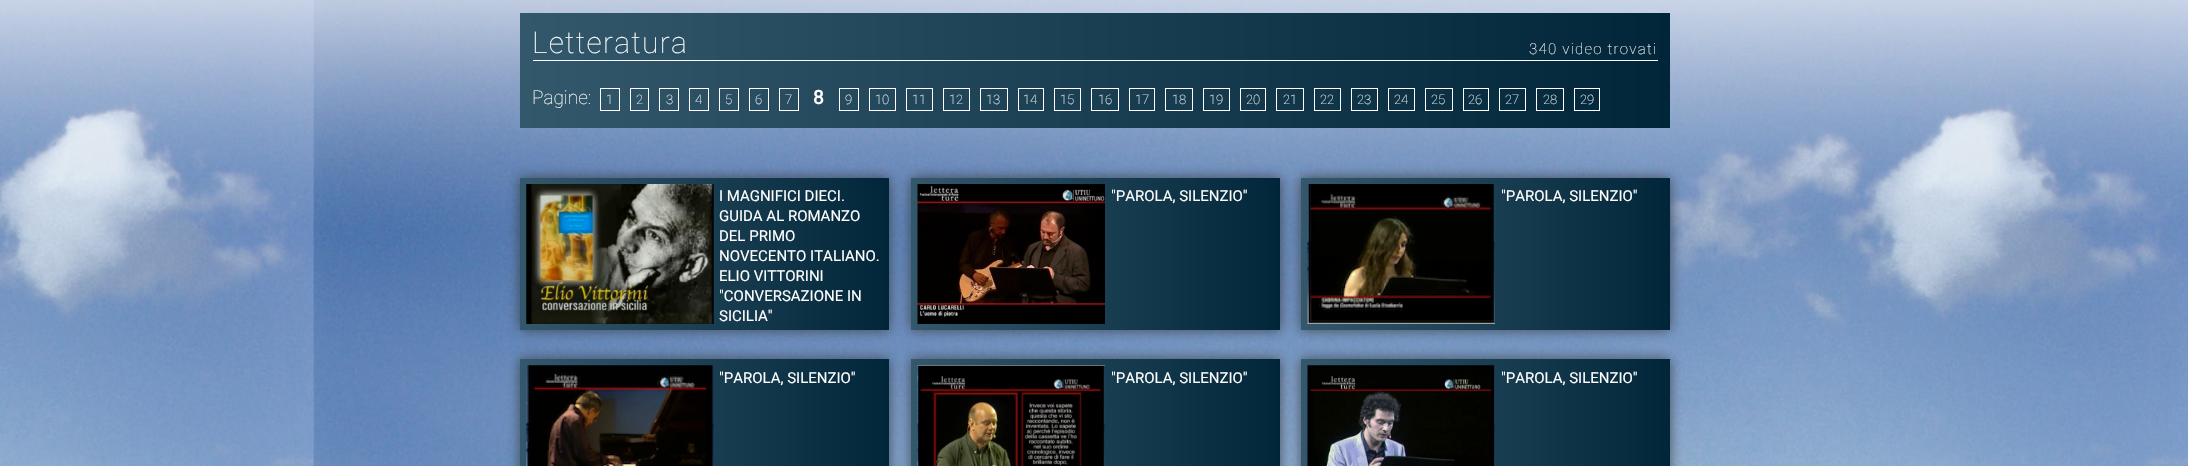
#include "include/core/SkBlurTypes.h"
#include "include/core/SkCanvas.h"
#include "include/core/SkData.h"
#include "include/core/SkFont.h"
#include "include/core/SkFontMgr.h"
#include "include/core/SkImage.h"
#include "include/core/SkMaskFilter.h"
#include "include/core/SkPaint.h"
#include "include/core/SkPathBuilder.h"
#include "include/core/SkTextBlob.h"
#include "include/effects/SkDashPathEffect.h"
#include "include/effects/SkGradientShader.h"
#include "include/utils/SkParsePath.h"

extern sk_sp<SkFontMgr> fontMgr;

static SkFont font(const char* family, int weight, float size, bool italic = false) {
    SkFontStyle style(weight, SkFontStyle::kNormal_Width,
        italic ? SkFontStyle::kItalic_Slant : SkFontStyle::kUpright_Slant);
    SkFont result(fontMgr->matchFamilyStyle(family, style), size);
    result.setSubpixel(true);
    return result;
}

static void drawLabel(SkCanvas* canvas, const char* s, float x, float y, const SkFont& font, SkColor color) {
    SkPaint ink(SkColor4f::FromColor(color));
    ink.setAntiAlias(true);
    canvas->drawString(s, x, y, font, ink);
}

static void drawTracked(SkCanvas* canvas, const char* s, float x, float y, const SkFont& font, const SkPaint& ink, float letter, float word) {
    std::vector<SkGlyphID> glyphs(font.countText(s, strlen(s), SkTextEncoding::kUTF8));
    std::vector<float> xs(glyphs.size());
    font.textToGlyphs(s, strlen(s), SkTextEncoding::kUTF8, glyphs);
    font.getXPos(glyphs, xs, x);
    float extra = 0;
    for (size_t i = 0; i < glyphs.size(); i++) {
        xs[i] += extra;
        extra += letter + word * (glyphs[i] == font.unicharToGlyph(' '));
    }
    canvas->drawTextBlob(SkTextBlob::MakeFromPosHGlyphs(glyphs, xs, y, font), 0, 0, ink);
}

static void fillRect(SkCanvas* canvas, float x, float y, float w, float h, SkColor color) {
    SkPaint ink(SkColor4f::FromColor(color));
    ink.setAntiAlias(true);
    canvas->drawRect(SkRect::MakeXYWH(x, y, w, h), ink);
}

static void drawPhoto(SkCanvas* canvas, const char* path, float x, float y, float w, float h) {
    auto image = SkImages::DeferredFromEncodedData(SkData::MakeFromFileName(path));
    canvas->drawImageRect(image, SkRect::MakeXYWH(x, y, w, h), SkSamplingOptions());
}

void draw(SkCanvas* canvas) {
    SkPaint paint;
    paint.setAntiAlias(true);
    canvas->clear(0xFFFFFFFF);
    drawPhoto(canvas, "assets/img1.png", 0, 0, 2188, 466);
    {
        const SkColor colors[] = {0xFF33586B, 0xFF012639};
        const float stops[] = {0, 1};
        const SkPoint ends[] = {{520, 43}, {1670, 43}};
        paint.setShader(SkGradientShader::MakeLinear(ends, colors, stops, 2, SkTileMode::kClamp));
        paint.setAlpha(255);
    }
    canvas->drawRect(SkRect::MakeXYWH(520, 13, 1150, 61), paint);
    fillRect(canvas, 533, 60, 1125, 1, 0xFFFFFFFF);
    SkFont font1 = font("Roboto", 100, 30);
    paint.setShader(nullptr);
    paint.setColor(0xFFFFFFFF);
    drawTracked(canvas, "Letteratura", 532, 53, font1, paint, 1.25f, 0);
    SkFont font2 = font("Roboto", 100, 15);
    drawTracked(canvas, "340 video trovati", 1529, 54, font2, paint, 1.25f, 0);
    {
        const SkColor colors[] = {0xFF33586B, 0xFF012639};
        const float stops[] = {0, 1};
        const SkPoint ends[] = {{520, 101}, {1670, 101}};
        paint.setShader(SkGradientShader::MakeLinear(ends, colors, stops, 2, SkTileMode::kClamp));
        paint.setAlpha(255);
    }
    canvas->drawRect(SkRect::MakeXYWH(520, 74, 1150, 54), paint);
    SkFont font3 = font("Roboto", 100, 19);
    drawLabel(canvas, "Pagine:", 532, 104, font3, 0xFFFFFFFF);
    paint.setStroke(true);
    paint.setStrokeWidth(1);
    paint.setShader(nullptr);
    paint.setColor(0xFFFFFFFF);
    canvas->drawRect(SkRect::MakeXYWH(600.5f, 88.5f, 19, 22), paint);
    SkFont font4 = font("Roboto", 100, 13);
    drawLabel(canvas, "1", 606, 104, font4, 0xFFFFFFFF);
    canvas->drawRect(SkRect::MakeXYWH(630.5f, 88.5f, 18, 22), paint);
    drawLabel(canvas, "2", 636, 104, font4, 0xFFFFFFFF);
    canvas->drawRect(SkRect::MakeXYWH(659.5f, 88.5f, 19, 22), paint);
    drawLabel(canvas, "3", 666, 104, font4, 0xFFFFFFFF);
    canvas->drawRect(SkRect::MakeXYWH(689.5f, 88.5f, 19, 22), paint);
    drawLabel(canvas, "4", 695, 104, font4, 0xFFFFFFFF);
    canvas->drawRect(SkRect::MakeXYWH(719.5f, 88.5f, 19, 22), paint);
    drawLabel(canvas, "5", 725, 104, font4, 0xFFFFFFFF);
    canvas->drawRect(SkRect::MakeXYWH(749.5f, 88.5f, 19, 22), paint);
    drawLabel(canvas, "6", 755, 104, font4, 0xFFFFFFFF);
    canvas->drawRect(SkRect::MakeXYWH(779.5f, 88.5f, 19, 22), paint);
    drawLabel(canvas, "7", 785, 104, font4, 0xFFFFFFFF);
    SkFont font5 = font("Roboto", 700, 19);
    drawLabel(canvas, "8", 813, 104, font5, 0xFFFFFFFF);
    canvas->drawRect(SkRect::MakeXYWH(839.5f, 88.5f, 19, 22), paint);
    drawLabel(canvas, "9", 845, 104, font4, 0xFFFFFFFF);
    canvas->drawRect(SkRect::MakeXYWH(869.5f, 88.5f, 26, 22), paint);
    drawLabel(canvas, "10", 875, 104, font4, 0xFFFFFFFF);
    canvas->drawRect(SkRect::MakeXYWH(906.5f, 88.5f, 26, 22), paint);
    drawLabel(canvas, "11", 912, 104, font4, 0xFFFFFFFF);
    canvas->drawRect(SkRect::MakeXYWH(943.5f, 88.5f, 26, 22), paint);
    drawLabel(canvas, "12", 949, 104, font4, 0xFFFFFFFF);
    canvas->drawRect(SkRect::MakeXYWH(980.5f, 88.5f, 27, 22), paint);
    drawLabel(canvas, "13", 986, 104, font4, 0xFFFFFFFF);
    canvas->drawRect(SkRect::MakeXYWH(1018.5f, 88.5f, 25, 22), paint);
    drawLabel(canvas, "14", 1023, 104, font4, 0xFFFFFFFF);
    canvas->drawRect(SkRect::MakeXYWH(1054.5f, 88.5f, 26, 22), paint);
    drawLabel(canvas, "15", 1060, 104, font4, 0xFFFFFFFF);
    canvas->drawRect(SkRect::MakeXYWH(1091.5f, 88.5f, 27, 22), paint);
    drawLabel(canvas, "16", 1098, 104, font4, 0xFFFFFFFF);
    canvas->drawRect(SkRect::MakeXYWH(1129.5f, 88.5f, 25, 22), paint);
    drawLabel(canvas, "17", 1135, 104, font4, 0xFFFFFFFF);
    canvas->drawRect(SkRect::MakeXYWH(1165.5f, 88.5f, 27, 22), paint);
    drawLabel(canvas, "18", 1172, 104, font4, 0xFFFFFFFF);
    canvas->drawRect(SkRect::MakeXYWH(1203.5f, 88.5f, 26, 22), paint);
    drawLabel(canvas, "19", 1209, 104, font4, 0xFFFFFFFF);
    canvas->drawRect(SkRect::MakeXYWH(1240.5f, 88.5f, 25, 22), paint);
    drawLabel(canvas, "20", 1246, 104, font4, 0xFFFFFFFF);
    canvas->drawRect(SkRect::MakeXYWH(1276.5f, 88.5f, 27, 22), paint);
    drawLabel(canvas, "21", 1283, 104, font4, 0xFFFFFFFF);
    canvas->drawRect(SkRect::MakeXYWH(1314.5f, 88.5f, 26, 22), paint);
    drawLabel(canvas, "22", 1320, 104, font4, 0xFFFFFFFF);
    canvas->drawRect(SkRect::MakeXYWH(1351.5f, 88.5f, 26, 22), paint);
    drawLabel(canvas, "23", 1357, 104, font4, 0xFFFFFFFF);
    canvas->drawRect(SkRect::MakeXYWH(1388.5f, 88.5f, 26, 22), paint);
    drawLabel(canvas, "24", 1394, 104, font4, 0xFFFFFFFF);
    canvas->drawRect(SkRect::MakeXYWH(1425.5f, 88.5f, 27, 22), paint);
    drawLabel(canvas, "25", 1431, 104, font4, 0xFFFFFFFF);
    canvas->drawRect(SkRect::MakeXYWH(1463.5f, 88.5f, 25, 22), paint);
    drawLabel(canvas, "26", 1468, 104, font4, 0xFFFFFFFF);
    canvas->drawRect(SkRect::MakeXYWH(1499.5f, 88.5f, 26, 22), paint);
    drawLabel(canvas, "27", 1505, 104, font4, 0xFFFFFFFF);
    canvas->drawRect(SkRect::MakeXYWH(1536.5f, 88.5f, 27, 22), paint);
    drawLabel(canvas, "28", 1543, 104, font4, 0xFFFFFFFF);
    canvas->drawRect(SkRect::MakeXYWH(1574.5f, 88.5f, 25, 22), paint);
    drawLabel(canvas, "29", 1580, 104, font4, 0xFFFFFFFF);
    paint.setStroke(false);
    paint.setColor(0xBF323232);
    paint.setMaskFilter(SkMaskFilter::MakeBlur(kNormal_SkBlurStyle, 6));
    canvas->drawRect(SkRect::MakeXYWH(520, 178, 369, 152), paint);
    paint.setMaskFilter(nullptr);
    {
        const SkColor colors[] = {0xFF33586B, 0xFF012639};
        const float stops[] = {0, 1};
        const SkPoint ends[] = {{520, 254}, {889, 254}};
        paint.setShader(SkGradientShader::MakeLinear(ends, colors, stops, 2, SkTileMode::kClamp));
        paint.setAlpha(255);
    }
    canvas->drawRect(SkRect::MakeXYWH(520, 178, 369, 152), paint);
    drawPhoto(canvas, "assets/img2.png", 526, 184, 188, 140);
    SkFont font6 = font("Roboto", 400, 15);
    drawLabel(canvas, "I MAGNIFICI DIECI.", 719, 201, font6, 0xFFFFFFFF);
    drawLabel(canvas, "GUIDA AL ROMANZO", 719, 221, font6, 0xFFFFFFFF);
    drawLabel(canvas, "DEL PRIMO", 719, 241, font6, 0xFFFFFFFF);
    drawLabel(canvas, "NOVECENTO ITALIANO.", 719, 261, font6, 0xFFFFFFFF);
    drawLabel(canvas, "ELIO VITTORINI", 719, 281, font6, 0xFFFFFFFF);
    drawLabel(canvas, "\"CONVERSAZIONE IN", 719, 301, font6, 0xFFFFFFFF);
    drawLabel(canvas, "SICILIA\"", 719, 321, font6, 0xFFFFFFFF);
    paint.setShader(nullptr);
    paint.setColor(0xBF323232);
    paint.setMaskFilter(SkMaskFilter::MakeBlur(kNormal_SkBlurStyle, 6));
    canvas->drawRect(SkRect::MakeXYWH(911, 178, 369, 152), paint);
    paint.setMaskFilter(nullptr);
    {
        const SkColor colors[] = {0xFF33586B, 0xFF012639};
        const float stops[] = {0, 1};
        const SkPoint ends[] = {{911, 254}, {1280, 254}};
        paint.setShader(SkGradientShader::MakeLinear(ends, colors, stops, 2, SkTileMode::kClamp));
        paint.setAlpha(255);
    }
    canvas->drawRect(SkRect::MakeXYWH(911, 178, 369, 152), paint);
    drawPhoto(canvas, "assets/img3.png", 917, 184, 188, 140);
    drawLabel(canvas, "\"PAROLA, SILENZIO\"", 1111, 201, font6, 0xFFFFFFFF);
    paint.setShader(nullptr);
    paint.setColor(0xBF323232);
    paint.setMaskFilter(SkMaskFilter::MakeBlur(kNormal_SkBlurStyle, 6));
    canvas->drawRect(SkRect::MakeXYWH(1301, 178, 369, 152), paint);
    paint.setMaskFilter(nullptr);
    {
        const SkColor colors[] = {0xFF33586B, 0xFF012639};
        const float stops[] = {0, 1};
        const SkPoint ends[] = {{1301, 254}, {1670, 254}};
        paint.setShader(SkGradientShader::MakeLinear(ends, colors, stops, 2, SkTileMode::kClamp));
        paint.setAlpha(255);
    }
    canvas->drawRect(SkRect::MakeXYWH(1301, 178, 369, 152), paint);
    drawPhoto(canvas, "assets/img4.png", 1307, 184, 188, 140);
    drawLabel(canvas, "\"PAROLA, SILENZIO\"", 1501, 201, font6, 0xFFFFFFFF);
    paint.setShader(nullptr);
    paint.setColor(0xBF323232);
    paint.setMaskFilter(SkMaskFilter::MakeBlur(kNormal_SkBlurStyle, 6));
    canvas->drawRect(SkRect::MakeXYWH(520, 359, 369, 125), paint);
    paint.setMaskFilter(nullptr);
    {
        const SkColor colors[] = {0xFF33586B, 0xFF012639};
        const float stops[] = {0, 1};
        const SkPoint ends[] = {{520, 435}, {889, 435}};
        paint.setShader(SkGradientShader::MakeLinear(ends, colors, stops, 2, SkTileMode::kClamp));
        paint.setAlpha(255);
    }
    canvas->drawRect(SkRect::MakeXYWH(520, 359, 369, 107), paint);
    drawPhoto(canvas, "assets/img5.png", 526, 365, 188, 101);
    drawLabel(canvas, "\"PAROLA, SILENZIO\"", 719, 383, font6, 0xFFFFFFFF);
    paint.setShader(nullptr);
    paint.setColor(0xBF323232);
    paint.setMaskFilter(SkMaskFilter::MakeBlur(kNormal_SkBlurStyle, 6));
    canvas->drawRect(SkRect::MakeXYWH(911, 359, 369, 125), paint);
    paint.setMaskFilter(nullptr);
    {
        const SkColor colors[] = {0xFF33586B, 0xFF012639};
        const float stops[] = {0, 1};
        const SkPoint ends[] = {{911, 435}, {1280, 435}};
        paint.setShader(SkGradientShader::MakeLinear(ends, colors, stops, 2, SkTileMode::kClamp));
        paint.setAlpha(255);
    }
    canvas->drawRect(SkRect::MakeXYWH(911, 359, 369, 107), paint);
    drawPhoto(canvas, "assets/img6.png", 917, 365, 188, 101);
    drawLabel(canvas, "\"PAROLA, SILENZIO\"", 1111, 383, font6, 0xFFFFFFFF);
    paint.setShader(nullptr);
    paint.setColor(0xBF323232);
    paint.setMaskFilter(SkMaskFilter::MakeBlur(kNormal_SkBlurStyle, 6));
    canvas->drawRect(SkRect::MakeXYWH(1301, 359, 369, 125), paint);
    paint.setMaskFilter(nullptr);
    {
        const SkColor colors[] = {0xFF33586B, 0xFF012639};
        const float stops[] = {0, 1};
        const SkPoint ends[] = {{1301, 435}, {1670, 435}};
        paint.setShader(SkGradientShader::MakeLinear(ends, colors, stops, 2, SkTileMode::kClamp));
        paint.setAlpha(255);
    }
    canvas->drawRect(SkRect::MakeXYWH(1301, 359, 369, 107), paint);
    drawPhoto(canvas, "assets/img7.png", 1307, 365, 188, 101);
    drawLabel(canvas, "\"PAROLA, SILENZIO\"", 1501, 383, font6, 0xFFFFFFFF);
}
